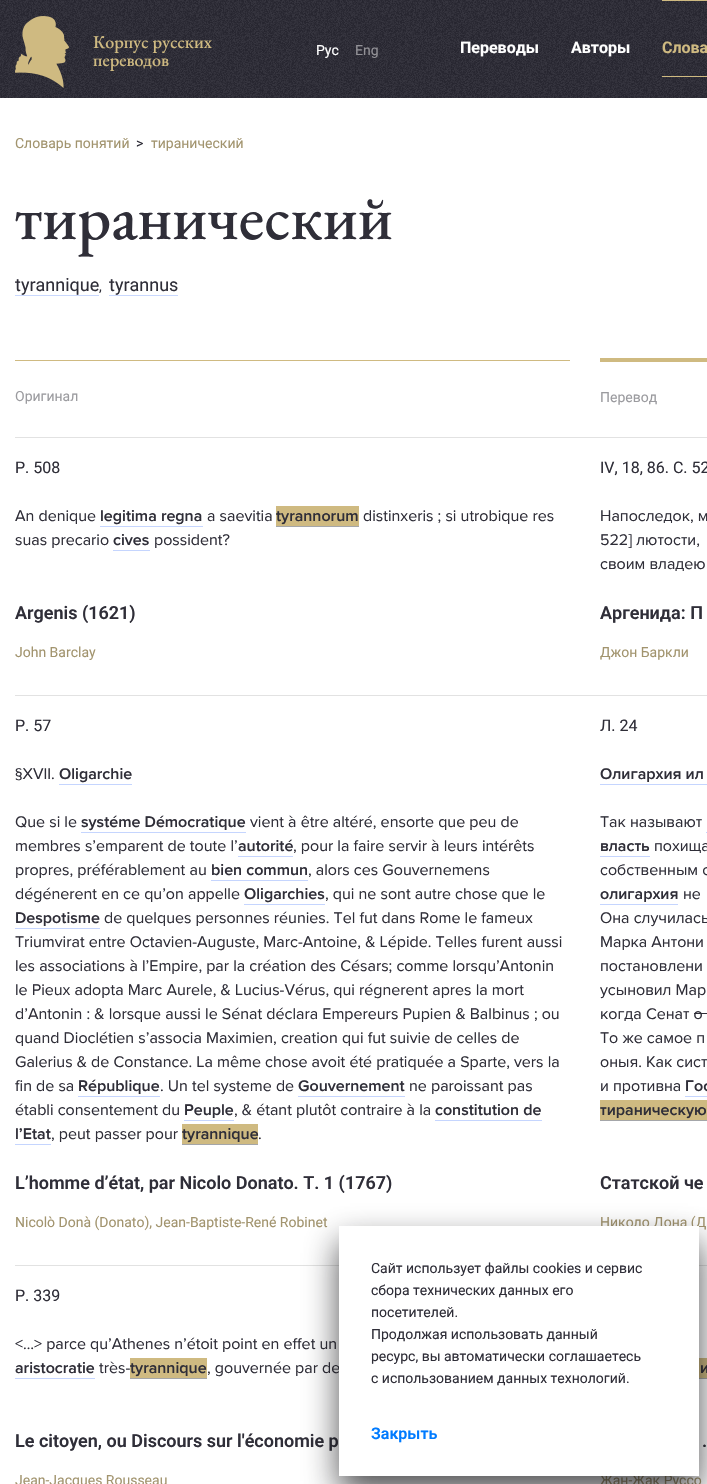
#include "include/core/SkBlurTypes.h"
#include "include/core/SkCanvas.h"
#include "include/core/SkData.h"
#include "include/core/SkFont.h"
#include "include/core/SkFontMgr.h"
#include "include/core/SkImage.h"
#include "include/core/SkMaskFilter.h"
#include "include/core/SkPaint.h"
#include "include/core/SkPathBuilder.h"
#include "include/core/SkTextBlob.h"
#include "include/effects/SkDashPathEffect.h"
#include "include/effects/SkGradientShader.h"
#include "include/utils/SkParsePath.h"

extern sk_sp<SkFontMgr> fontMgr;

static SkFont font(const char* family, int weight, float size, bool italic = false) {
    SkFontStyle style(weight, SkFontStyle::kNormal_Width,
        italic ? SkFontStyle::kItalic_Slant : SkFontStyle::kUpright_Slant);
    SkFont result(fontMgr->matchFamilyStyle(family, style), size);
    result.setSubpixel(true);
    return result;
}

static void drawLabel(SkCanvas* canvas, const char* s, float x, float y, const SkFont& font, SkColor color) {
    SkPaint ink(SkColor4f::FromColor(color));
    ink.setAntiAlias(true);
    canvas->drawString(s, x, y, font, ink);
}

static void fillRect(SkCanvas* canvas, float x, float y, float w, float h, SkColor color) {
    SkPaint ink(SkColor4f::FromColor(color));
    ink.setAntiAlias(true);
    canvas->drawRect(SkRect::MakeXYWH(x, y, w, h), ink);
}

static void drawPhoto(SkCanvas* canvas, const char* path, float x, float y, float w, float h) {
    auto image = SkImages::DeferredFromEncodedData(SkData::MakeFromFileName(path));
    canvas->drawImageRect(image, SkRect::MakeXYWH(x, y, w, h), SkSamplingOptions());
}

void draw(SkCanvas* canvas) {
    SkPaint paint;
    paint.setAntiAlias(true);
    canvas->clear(0xFFFFFFFF);
    drawPhoto(canvas, "assets/img1.png", 0, 0, 707, 98);
    drawPhoto(canvas, "assets/img2.png", 15, 16, 54, 72);
    SkFont font1 = font("EB Garamond", 500, 18);
    drawLabel(canvas, "Корпус русских", 93, 48, font1, 0xFFCFBA81);
    drawLabel(canvas, "переводов", 93, 66, font1, 0xFFCFBA81);
    SkFont font2 = font("Roboto", 400, 14);
    drawLabel(canvas, "Рус", 316, 55, font2, 0xFFFFFFFF);
    drawLabel(canvas, "Eng", 355, 55, font2, 0xFF939297);
    SkFont font3 = font("Roboto", 700, 16);
    drawLabel(canvas, "Переводы", 460, 53, font3, 0xFFFFFFFF);
    drawLabel(canvas, "Авторы", 571, 53, font3, 0xFFFFFFFF);
    fillRect(canvas, 662, 0, 45, 1, 0xFFCFBA81);
    drawLabel(canvas, "Слова", 662, 53, font3, 0xFFCFBA81);
    fillRect(canvas, 662, 76, 45, 1, 0xFFCFBA81);
    drawLabel(canvas, "Словарь понятий", 15, 148, font2, 0xFFA2946E);
    drawLabel(canvas, ">", 136, 148, font2, 0xFF2F2E38);
    drawLabel(canvas, "тиранический", 151, 148, font2, 0xFFA2946E);
    SkFont font4 = font("EB Garamond", 500, 64);
    drawLabel(canvas, "тиранический", 15, 239, font4, 0xFF2F2E38);
    SkFont font5 = font("Roboto", 400, 18);
    drawLabel(canvas, "tyrannique", 15, 291, font5, 0xFF2F2E38);
    fillRect(canvas, 15, 295, 84, 1, 0xFFC9D8FE);
    drawLabel(canvas, ",", 99, 291, font2, 0xFF2F2E38);
    drawLabel(canvas, "tyrannus", 109, 291, font5, 0xFF2F2E38);
    fillRect(canvas, 109, 295, 69, 1, 0xFFC9D8FE);
    fillRect(canvas, 15, 360, 555, 1, 0xFFCFBA81);
    drawLabel(canvas, "Оригинал", 15, 401, font2, 0xFF9B9B9F);
    fillRect(canvas, 600, 358, 107, 4, 0xFFCFBA81);
    drawLabel(canvas, "Перевод", 600, 402, font2, 0xFF9B9B9F);
    fillRect(canvas, 15, 437, 692, 1, 0xFFE2E2E2);
    SkFont font6 = font("Roboto", 400, 16);
    drawLabel(canvas, "P. 508", 15, 473, font6, 0xFF2F2E38);
    SkFont font7 = font("Proxima Nova", 400, 16);
    drawLabel(canvas, "An denique", 15, 521, font7, 0xFF2F2E38);
    SkFont font8 = font("Proxima Nova", 600, 16);
    drawLabel(canvas, "legitima regna", 100, 521, font8, 0xFF2F2E38);
    fillRect(canvas, 100, 526, 103, 1, 0xFFC5D5FE);
    drawLabel(canvas, "a saevitia", 207, 521, font7, 0xFF2F2E38);
    fillRect(canvas, 276, 506, 83, 20, 0xFFCFBA81);
    drawLabel(canvas, "tyrannorum", 276, 521, font8, 0xFF2F2E38);
    fillRect(canvas, 276, 526, 83, 1, 0xFFA4A6A9);
    drawLabel(canvas, "distinxeris ; si utrobique res", 363, 521, font7, 0xFF2F2E38);
    drawLabel(canvas, "suas precario", 15, 545, font7, 0xFF2F2E38);
    drawLabel(canvas, "cives", 113, 545, font8, 0xFF2F2E38);
    fillRect(canvas, 113, 550, 37, 1, 0xFFC5D5FE);
    drawLabel(canvas, "possident?", 154, 545, font7, 0xFF2F2E38);
    SkFont font9 = font("Roboto", 600, 18);
    drawLabel(canvas, "Argenis (1621)", 15, 619, font9, 0xFF2F2E38);
    drawLabel(canvas, "John Barclay", 15, 657, font2, 0xFFA2946E);
    drawLabel(canvas, "IV, 18, 86. С. 52", 600, 473, font6, 0xFF2F2E38);
    drawLabel(canvas, "Напоследок, м", 600, 521, font7, 0xFF2F2E38);
    drawLabel(canvas, "522] лютости,", 600, 545, font7, 0xFF2F2E38);
    drawLabel(canvas, "своим владею", 600, 569, font7, 0xFF2F2E38);
    drawLabel(canvas, "Аргенида: П", 600, 619, font9, 0xFF2F2E38);
    drawLabel(canvas, "Джон Баркли", 600, 657, font2, 0xFFA2946E);
    fillRect(canvas, 15, 695, 692, 1, 0xFFE2E2E2);
    drawLabel(canvas, "P. 57", 15, 731, font6, 0xFF2F2E38);
    drawLabel(canvas, "§ХVII.", 15, 779, font7, 0xFF2F2E38);
    drawLabel(canvas, "Oligarchie", 59, 779, font8, 0xFF2F2E38);
    fillRect(canvas, 59, 784, 73, 1, 0xFFC5D5FE);
    drawLabel(canvas, "Que si le", 15, 827, font7, 0xFF2F2E38);
    drawLabel(canvas, "systéme Démocratique", 81, 827, font8, 0xFF2F2E38);
    fillRect(canvas, 81, 832, 165, 1, 0xFFC5D5FE);
    drawLabel(canvas, "vient à être altéré, ensorte que peu de", 250, 827, font7, 0xFF2F2E38);
    drawLabel(canvas, "membres s’emparent de toute l’", 15, 851, font7, 0xFF2F2E38);
    drawLabel(canvas, "autorité", 238, 851, font8, 0xFF2F2E38);
    fillRect(canvas, 238, 856, 55, 1, 0xFFC5D5FE);
    drawLabel(canvas, ", pour la faire servir à leurs intérêts", 293, 851, font7, 0xFF2F2E38);
    drawLabel(canvas, "propres, préférablement au", 15, 875, font7, 0xFF2F2E38);
    drawLabel(canvas, "bien commun", 211, 875, font8, 0xFF2F2E38);
    fillRect(canvas, 211, 880, 97, 1, 0xFFC5D5FE);
    drawLabel(canvas, ", alors ces Gouvernemens", 308, 875, font7, 0xFF2F2E38);
    drawLabel(canvas, "dégénerent en ce qu’on appelle", 15, 899, font7, 0xFF2F2E38);
    drawLabel(canvas, "Oligarchies", 244, 899, font8, 0xFF2F2E38);
    fillRect(canvas, 244, 904, 81, 1, 0xFFC5D5FE);
    drawLabel(canvas, ", qui ne sont autre chose que le", 325, 899, font7, 0xFF2F2E38);
    drawLabel(canvas, "Despotisme", 15, 923, font8, 0xFF2F2E38);
    fillRect(canvas, 15, 928, 85, 1, 0xFFC5D5FE);
    drawLabel(canvas, "de quelques personnes réunies. Tel fut dans Rome le fameux", 104, 923, font7, 0xFF2F2E38);
    drawLabel(canvas, "Triumvirat entre Octavien-Auguste, Marc-Antoine, & Lépide. Telles furent aussi", 15, 947, font7, 0xFF2F2E38);
    drawLabel(canvas, "les associations à l’Empire, par la création des Césars; comme lorsqu’Antonin", 15, 971, font7, 0xFF2F2E38);
    drawLabel(canvas, "le Pieux adopta Marc Aurele, & Lucius-Vérus, qui régnerent apres la mort", 15, 995, font7, 0xFF2F2E38);
    drawLabel(canvas, "d’Antonin : & lorsque aussi le Sénat déclara Empereurs Pupien & Balbinus ; ou", 15, 1019, font7, 0xFF2F2E38);
    drawLabel(canvas, "quand Dioclétien s’associa Maximien, creation qui fut suivie de celles de", 15, 1043, font7, 0xFF2F2E38);
    drawLabel(canvas, "Galerius & de Constance. La même chose avoit été pratiquée a Sparte, vers la", 15, 1067, font7, 0xFF2F2E38);
    drawLabel(canvas, "fin de sa", 15, 1091, font7, 0xFF2F2E38);
    drawLabel(canvas, "République", 78, 1091, font8, 0xFF2F2E38);
    fillRect(canvas, 78, 1096, 82, 1, 0xFFC5D5FE);
    drawLabel(canvas, ". Un tel systeme de", 160, 1091, font7, 0xFF2F2E38);
    drawLabel(canvas, "Gouvernement", 298, 1091, font8, 0xFF2F2E38);
    fillRect(canvas, 298, 1096, 107, 1, 0xFFC5D5FE);
    drawLabel(canvas, "ne paroissant pas", 409, 1091, font7, 0xFF2F2E38);
    drawLabel(canvas, "établi consentement du", 15, 1115, font7, 0xFF2F2E38);
    drawLabel(canvas, "Peuple", 184, 1115, font8, 0xFF2F2E38);
    fillRect(canvas, 184, 1120, 50, 1, 0xFFC5D5FE);
    drawLabel(canvas, ", & étant plutôt contraire à la", 234, 1115, font7, 0xFF2F2E38);
    drawLabel(canvas, "constitution de", 435, 1115, font8, 0xFF2F2E38);
    fillRect(canvas, 435, 1120, 107, 1, 0xFFC5D5FE);
    drawLabel(canvas, "l’Etat", 15, 1139, font8, 0xFF2F2E38);
    fillRect(canvas, 15, 1144, 36, 1, 0xFFC5D5FE);
    drawLabel(canvas, ", peut passer pour", 51, 1139, font7, 0xFF2F2E38);
    fillRect(canvas, 182, 1124, 76, 20, 0xFFCFBA81);
    drawLabel(canvas, "tyrannique", 182, 1139, font8, 0xFF2F2E38);
    fillRect(canvas, 182, 1144, 76, 1, 0xFFA4A6A9);
    drawLabel(canvas, ".", 258, 1139, font7, 0xFF2F2E38);
    drawLabel(canvas, "L’homme d’état, par Nicolo Donato. T. 1 (1767)", 15, 1189, font9, 0xFF2F2E38);
    drawLabel(canvas, "Nicolò Donà (Donato), Jean-Baptiste-René Robinet", 15, 1227, font2, 0xFFA2946E);
    drawLabel(canvas, "Л. 24", 600, 731, font6, 0xFF2F2E38);
    drawLabel(canvas, "Олигархия ил", 600, 779, font8, 0xFF2F2E38);
    fillRect(canvas, 600, 784, 107, 1, 0xFFC5D5FE);
    drawLabel(canvas, "Так называют", 600, 827, font7, 0xFF2F2E38);
    fillRect(canvas, 706, 832, 1, 1, 0xFFC5D5FE);
    drawLabel(canvas, "власть", 600, 851, font8, 0xFF2F2E38);
    fillRect(canvas, 600, 856, 50, 1, 0xFFC5D5FE);
    drawLabel(canvas, "похища", 654, 851, font7, 0xFF2F2E38);
    drawLabel(canvas, "собственным с", 600, 875, font7, 0xFF2F2E38);
    drawLabel(canvas, "олигархия", 600, 899, font8, 0xFF2F2E38);
    fillRect(canvas, 600, 904, 78, 1, 0xFFC5D5FE);
    drawLabel(canvas, "не", 683, 899, font7, 0xFF2F2E38);
    drawLabel(canvas, "Она случилась", 600, 923, font7, 0xFF2F2E38);
    drawLabel(canvas, "Марка Антони", 600, 947, font7, 0xFF2F2E38);
    drawLabel(canvas, "постановлени", 600, 971, font7, 0xFF2F2E38);
    drawLabel(canvas, "усыновил Мар", 600, 995, font7, 0xFF2F2E38);
    drawLabel(canvas, "когда Сенат о", 600, 1019, font7, 0xFF2F2E38);
    fillRect(canvas, 694, 1013, 13, 1, 0xFF2F2E38);
    drawLabel(canvas, "То же самое п", 600, 1043, font7, 0xFF2F2E38);
    drawLabel(canvas, "оныя. Как сист", 600, 1067, font7, 0xFF2F2E38);
    drawLabel(canvas, "и противна", 600, 1091, font7, 0xFF2F2E38);
    drawLabel(canvas, "Гос", 685, 1091, font8, 0xFF2F2E38);
    fillRect(canvas, 685, 1096, 22, 1, 0xFFC5D5FE);
    fillRect(canvas, 600, 1100, 107, 20, 0xFFCFBA81);
    drawLabel(canvas, "тираническую", 600, 1115, font8, 0xFF2F2E38);
    fillRect(canvas, 600, 1120, 107, 1, 0xFFA4A6A9);
    drawLabel(canvas, "Статской че", 600, 1189, font9, 0xFF2F2E38);
    drawLabel(canvas, "Николо Дона (Д", 600, 1227, font2, 0xFFA2946E);
    fillRect(canvas, 15, 1265, 692, 1, 0xFFE2E2E2);
    drawLabel(canvas, "P. 339", 15, 1301, font6, 0xFF2F2E38);
    drawLabel(canvas, "<…> parce qu’Athenes n’étoit point en effet un", 15, 1349, font7, 0xFF2F2E38);
    drawLabel(canvas, "aristocratie", 15, 1373, font8, 0xFF2F2E38);
    fillRect(canvas, 15, 1378, 80, 1, 0xFFC5D5FE);
    drawLabel(canvas, "très-", 99, 1373, font7, 0xFF2F2E38);
    fillRect(canvas, 130, 1358, 77, 20, 0xFFCFBA81);
    drawLabel(canvas, "tyrannique", 130, 1373, font8, 0xFF2F2E38);
    fillRect(canvas, 130, 1378, 77, 1, 0xFFA4A6A9);
    drawLabel(canvas, ", gouvernée par de", 207, 1373, font7, 0xFF2F2E38);
    drawLabel(canvas, "Le citoyen, ou Discours sur l'économie p", 15, 1447, font9, 0xFF2F2E38);
    drawLabel(canvas, "Jean-Jacques Rousseau", 15, 1485, font2, 0xFFA2946E);
    fillRect(canvas, 699, 1358, 8, 20, 0xFFCFBA81);
    drawLabel(canvas, "и", 700, 1373, font8, 0xFF2F2E38);
    fillRect(canvas, 699, 1378, 8, 1, 0xFFA4A6A9);
    drawLabel(canvas, ".", 702, 1447, font9, 0xFF2F2E38);
    drawLabel(canvas, "Жан-Жак Руссо", 600, 1485, font2, 0xFFA2946E);
    paint.setColor(0xB80D0D0F);
    paint.setMaskFilter(SkMaskFilter::MakeBlur(kNormal_SkBlurStyle, 16));
    canvas->drawRect(SkRect::MakeXYWH(339, 1242, 360, 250), paint);
    paint.setMaskFilter(nullptr);
    fillRect(canvas, 339, 1226, 360, 250, 0xFFFFFFFF);
    drawLabel(canvas, "Сайт использует файлы cookies и сервис", 371, 1273, font2, 0xFF2F2E38);
    drawLabel(canvas, "сбора технических данных его", 371, 1295, font2, 0xFF2F2E38);
    drawLabel(canvas, "посетителей.", 371, 1317, font2, 0xFF2F2E38);
    drawLabel(canvas, "Продолжая использовать данный", 371, 1339, font2, 0xFF2F2E38);
    drawLabel(canvas, "ресурс, вы автоматически соглашаетесь", 371, 1361, font2, 0xFF2F2E38);
    drawLabel(canvas, "с использованием данных технологий.", 371, 1383, font2, 0xFF2F2E38);
    SkFont font10 = font("Roboto", 600, 16);
    drawLabel(canvas, "Закрыть", 371, 1439, font10, 0xFF007BFF);
}
